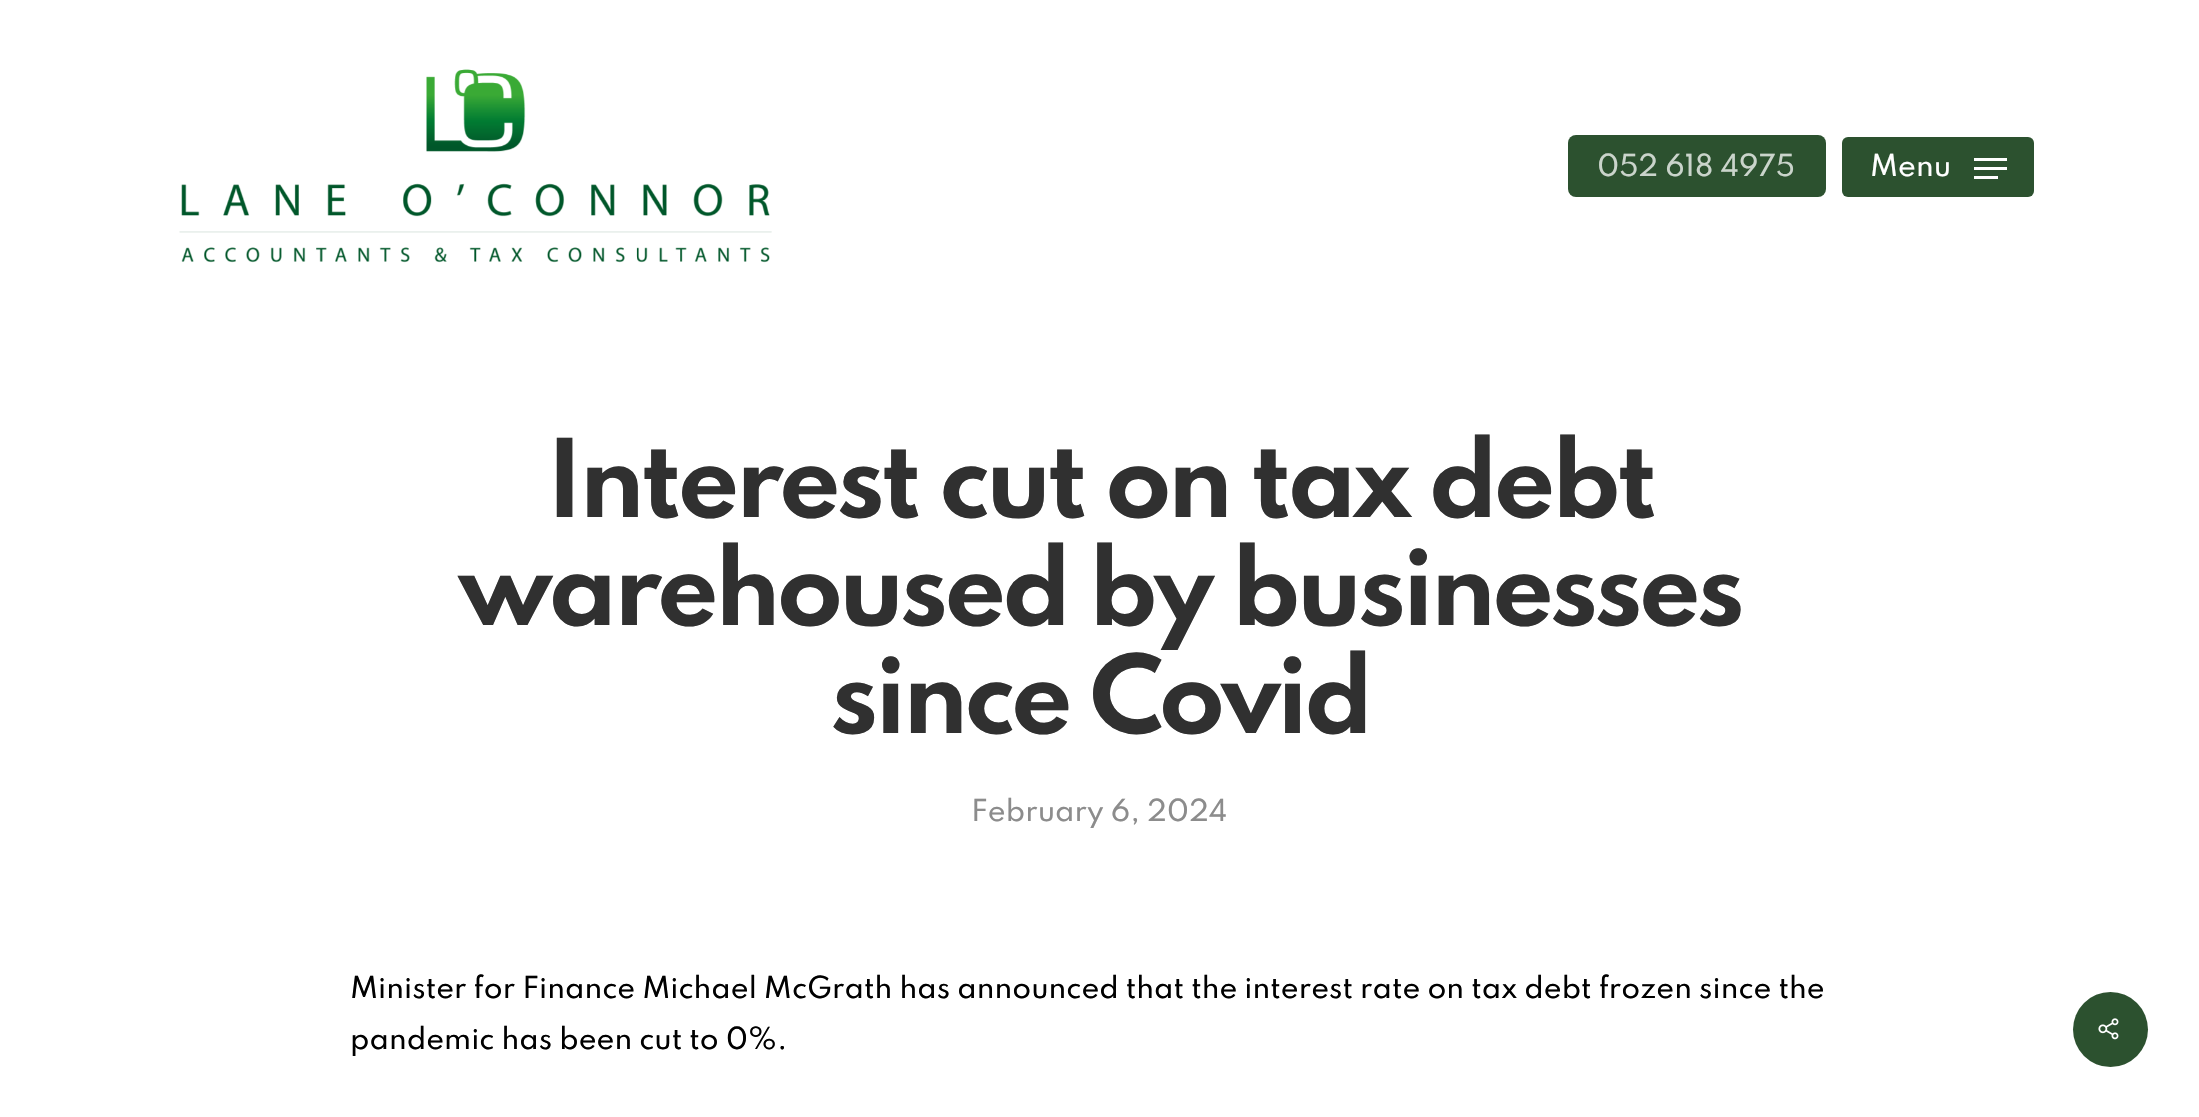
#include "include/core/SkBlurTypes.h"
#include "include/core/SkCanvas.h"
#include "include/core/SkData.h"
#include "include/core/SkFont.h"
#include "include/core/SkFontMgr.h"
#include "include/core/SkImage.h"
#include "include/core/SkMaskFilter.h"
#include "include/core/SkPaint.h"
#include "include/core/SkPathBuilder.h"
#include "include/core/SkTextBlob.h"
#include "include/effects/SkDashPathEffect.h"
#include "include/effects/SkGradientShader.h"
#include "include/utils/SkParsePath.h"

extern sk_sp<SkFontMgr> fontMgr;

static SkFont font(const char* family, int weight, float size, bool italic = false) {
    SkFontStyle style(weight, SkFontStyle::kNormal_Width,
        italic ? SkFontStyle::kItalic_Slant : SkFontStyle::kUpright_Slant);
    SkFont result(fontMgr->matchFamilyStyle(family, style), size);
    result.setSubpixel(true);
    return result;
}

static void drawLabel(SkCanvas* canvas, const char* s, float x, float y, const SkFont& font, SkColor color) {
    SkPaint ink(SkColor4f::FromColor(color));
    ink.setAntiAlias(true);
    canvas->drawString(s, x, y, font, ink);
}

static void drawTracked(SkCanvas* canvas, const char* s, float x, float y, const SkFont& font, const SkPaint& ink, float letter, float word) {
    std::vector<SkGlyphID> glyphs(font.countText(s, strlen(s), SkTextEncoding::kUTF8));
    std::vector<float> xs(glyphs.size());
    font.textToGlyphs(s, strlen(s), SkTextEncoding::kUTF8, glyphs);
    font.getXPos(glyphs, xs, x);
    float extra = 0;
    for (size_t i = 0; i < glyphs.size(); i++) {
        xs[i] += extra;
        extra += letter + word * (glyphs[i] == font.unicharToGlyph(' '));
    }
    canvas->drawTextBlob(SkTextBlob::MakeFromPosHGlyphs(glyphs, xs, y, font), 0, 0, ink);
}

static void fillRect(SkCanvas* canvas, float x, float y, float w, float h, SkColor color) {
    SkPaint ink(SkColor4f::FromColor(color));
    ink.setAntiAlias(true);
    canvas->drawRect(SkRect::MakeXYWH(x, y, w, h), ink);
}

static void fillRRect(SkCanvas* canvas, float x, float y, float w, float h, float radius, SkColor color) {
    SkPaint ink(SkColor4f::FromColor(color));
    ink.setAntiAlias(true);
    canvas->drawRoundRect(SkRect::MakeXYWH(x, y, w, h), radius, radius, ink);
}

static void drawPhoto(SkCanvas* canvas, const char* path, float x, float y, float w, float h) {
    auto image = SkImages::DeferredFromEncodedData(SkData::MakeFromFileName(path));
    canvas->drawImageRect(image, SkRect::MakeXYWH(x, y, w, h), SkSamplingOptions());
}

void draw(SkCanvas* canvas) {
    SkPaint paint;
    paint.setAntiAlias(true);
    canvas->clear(0xFFFFFFFF);
    drawPhoto(canvas, "assets/img1.png", 179, 69, 593, 194);
    fillRRect(canvas, 1568, 135, 258, 62, 8, 0xFF2C512F);
    SkFont font1 = font("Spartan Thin", 500, 27);
    drawLabel(canvas, "052 618 4975", 1597, 176, font1, 0xFFCAD4CB);
    fillRRect(canvas, 1842, 137, 192, 60, 6, 0xFF2C512F);
    drawLabel(canvas, "Menu", 1870, 176, font1, 0xFFFFFFFF);
    fillRect(canvas, 1974, 158, 33, 3, 0xFFFFFFFF);
    fillRect(canvas, 1974, 176, 24, 3, 0xFFFFFFFF);
    fillRect(canvas, 1974, 167, 33, 3, 0xFFFFFFFF);
    SkFont font2 = font("Spartan Thin", 700, 96);
    paint.setColor(0xFF303030);
    drawTracked(canvas, "Interest cut on tax debt", 546, 517, font2, paint, -4.5f, 0);
    drawTracked(canvas, "warehoused by businesses", 458, 625, font2, paint, -4.5f, 0);
    drawTracked(canvas, "since Covid", 830, 733, font2, paint, -4.5f, 0);
    drawLabel(canvas, "February 6, 2024", 971, 821, font1, 0xFF8C8C8C);
    drawLabel(canvas, "Minister for Finance Michael McGrath has announced that the interest rate on tax debt frozen since the", 350, 998, font1, 0xFF000000);
    drawLabel(canvas, "pandemic has been cut to 0%.", 350, 1049, font1, 0xFF000000);
    paint.setColor(0xFF2C512F);
    canvas->drawCircle(2110.5f, 1029.5f, 37.5f, paint);
    drawPhoto(canvas, "assets/img2.png", 2098, 1018, 21, 22);
}
